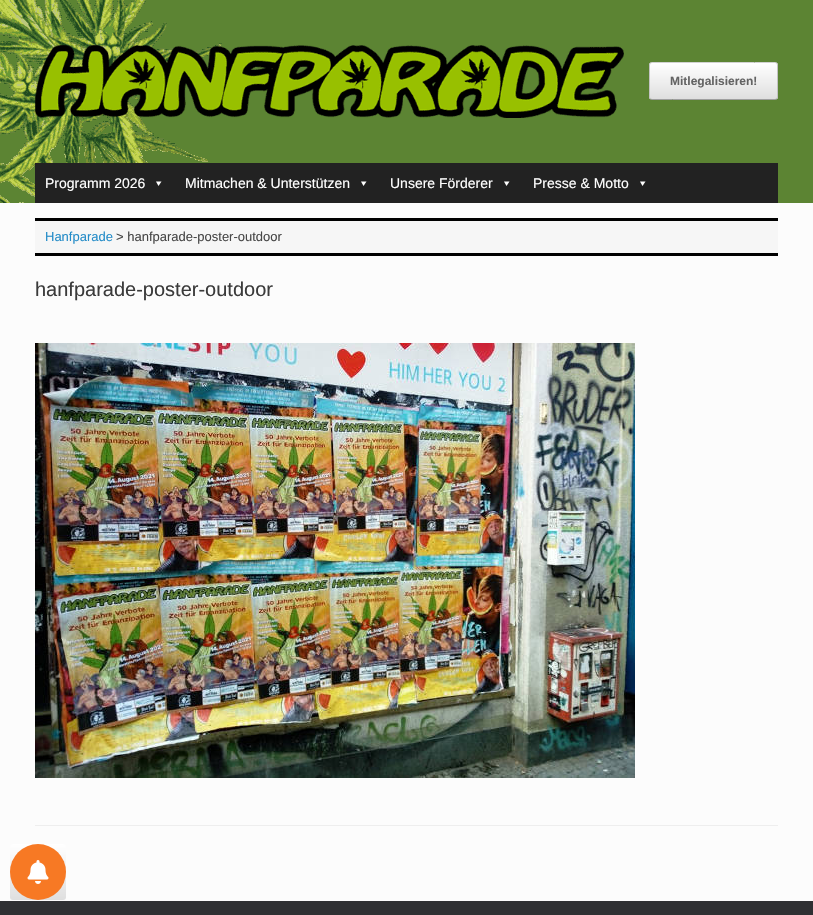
#include "include/core/SkBlurTypes.h"
#include "include/core/SkCanvas.h"
#include "include/core/SkData.h"
#include "include/core/SkFont.h"
#include "include/core/SkFontMgr.h"
#include "include/core/SkImage.h"
#include "include/core/SkMaskFilter.h"
#include "include/core/SkPaint.h"
#include "include/core/SkPathBuilder.h"
#include "include/core/SkTextBlob.h"
#include "include/effects/SkDashPathEffect.h"
#include "include/effects/SkGradientShader.h"
#include "include/utils/SkParsePath.h"

extern sk_sp<SkFontMgr> fontMgr;

static SkFont font(const char* family, int weight, float size, bool italic = false) {
    SkFontStyle style(weight, SkFontStyle::kNormal_Width,
        italic ? SkFontStyle::kItalic_Slant : SkFontStyle::kUpright_Slant);
    SkFont result(fontMgr->matchFamilyStyle(family, style), size);
    result.setSubpixel(true);
    return result;
}

static void drawLabel(SkCanvas* canvas, const char* s, float x, float y, const SkFont& font, SkColor color) {
    SkPaint ink(SkColor4f::FromColor(color));
    ink.setAntiAlias(true);
    canvas->drawString(s, x, y, font, ink);
}

static void fillRect(SkCanvas* canvas, float x, float y, float w, float h, SkColor color) {
    SkPaint ink(SkColor4f::FromColor(color));
    ink.setAntiAlias(true);
    canvas->drawRect(SkRect::MakeXYWH(x, y, w, h), ink);
}

static void drawPhoto(SkCanvas* canvas, const char* path, float x, float y, float w, float h) {
    auto image = SkImages::DeferredFromEncodedData(SkData::MakeFromFileName(path));
    canvas->drawImageRect(image, SkRect::MakeXYWH(x, y, w, h), SkSamplingOptions());
}

static SkPath parsePath(const char* data, bool evenOdd = false) {
    SkPath result = *SkParsePath::FromSVGString(data);
    if (evenOdd) result.setFillType(SkPathFillType::kEvenOdd);
    return result;
}

void draw(SkCanvas* canvas) {
    SkPaint paint;
    paint.setAntiAlias(true);
    canvas->clear(0xFF5C8433);
    drawPhoto(canvas, "assets/img1.png", 0, 0, 222, 203);
    drawPhoto(canvas, "assets/img2.png", 35, 45, 589, 73);
    canvas->save();
    canvas->clipPath(parsePath("M652 62H775C776.5 62 778 63.5 778 65V97C778 98.5 776.5 100 775 100H652C650.5 100 649 98.5 649 97V65C649 63.5 650.5 62 652 62Z"), true);
    {
        const SkColor colors[] = {0xFFDFDFDF, 0xFFFFFFFF};
        const float stops[] = {0, 1};
        const SkPoint ends[] = {{650, 99}, {650, 63}};
        paint.setShader(SkGradientShader::MakeLinear(ends, colors, stops, 2, SkTileMode::kClamp));
        paint.setAlpha(255);
    }
    canvas->drawRect(SkRect::MakeXYWH(649, 63, 129, 36), paint);
    canvas->restore();
    paint.setStroke(true);
    paint.setStrokeWidth(1);
    paint.setShader(nullptr);
    paint.setColor(0xFFD2D2D2);
    canvas->drawPath(parsePath("M650 63L652 62.5H754.5H775L777 63"), paint);
    paint.setColor(0xFFC3C3C3);
    canvas->drawPath(parsePath("M777 63C777 63.5 777.5 64.5 777.5 65V97C777.5 97.5 777 98.5 777 99"), paint);
    paint.setColor(0xFF9F9F9F);
    canvas->drawPath(parsePath("M777 99L775 99.5H672.5H652L650 99"), paint);
    paint.setColor(0xFFC3C3C3);
    canvas->drawPath(parsePath("M650 99C650 98.5 649.5 97.5 649.5 97V65C649.5 64.5 650 63.5 650 63"), paint);
    SkFont font1 = font("Liberation Sans", 700, 12);
    drawLabel(canvas, "Mitlegalisieren!", 670, 85, font1, 0xFF646464);
    fillRect(canvas, 35, 163, 743, 40, 0xFF222222);
    SkFont font2 = font("Liberation Sans", 400, 14);
    drawLabel(canvas, "Programm 2026", 45, 188, font2, 0xFFFFFFFF);
    paint.setStroke(false);
    paint.setColor(0xFFFFFFFF);
    canvas->drawPath(parsePath("M161.5 181.5L158.5 186L156 181.5Z"), paint);
    drawLabel(canvas, "Mitmachen & Unterstützen", 185, 188, font2, 0xFFFFFFFF);
    canvas->drawPath(parsePath("M366.5 181.5L363.5 186L361 181.5Z"), paint);
    drawLabel(canvas, "Unsere Förderer", 390, 188, font2, 0xFFFFFFFF);
    canvas->drawPath(parsePath("M509.5 181.5L506.5 186L504 181.5Z"), paint);
    drawLabel(canvas, "Presse & Motto", 533, 188, font2, 0xFFFFFFFF);
    canvas->drawPath(parsePath("M645.5 181.5L642.5 186L640 181.5Z"), paint);
    fillRect(canvas, 0, 203, 813, 698, 0xFFFCFCFC);
    fillRect(canvas, 35, 221, 743, 32, 0xFFF6F6F6);
    fillRect(canvas, 35, 218, 743, 3, 0xFF000000);
    fillRect(canvas, 35, 253, 743, 3, 0xFF000000);
    SkFont font3 = font("Liberation Sans", 400, 13);
    drawLabel(canvas, "Hanfparade", 45, 241, font3, 0xFF248CC8);
    drawLabel(canvas, "> hanfparade-poster-outdoor", 116, 241, font3, 0xFF474747);
    fillRect(canvas, 35, 825, 743, 1, 0xFFEEEEEE);
    SkFont font4 = font("Liberation Sans", 400, 20);
    drawLabel(canvas, "hanfparade-poster-outdoor", 35, 296, font4, 0xFF3B3B3B);
    drawPhoto(canvas, "assets/img3.png", 35, 343, 600, 435);
    fillRect(canvas, 0, 901, 813, 14, 0xFF2F3033);
    {
        const SkColor colors[] = {0xFFDFDFDF, 0xFFFFFFFF};
        const float stops[] = {0, 1};
        const SkPoint ends[] = {{10, 900}, {10, 844}};
        paint.setShader(SkGradientShader::MakeLinear(ends, colors, stops, 2, SkTileMode::kClamp));
        paint.setAlpha(255);
    }
    canvas->drawRoundRect(SkRect::MakeXYWH(10, 844, 56, 56), 3, 3, paint);
    paint.setShader(nullptr);
    paint.setColor(0xFFF77924);
    canvas->drawCircle(38, 872, 28, paint);
    drawPhoto(canvas, "assets/img4.png", 27, 860, 22, 24);
}
